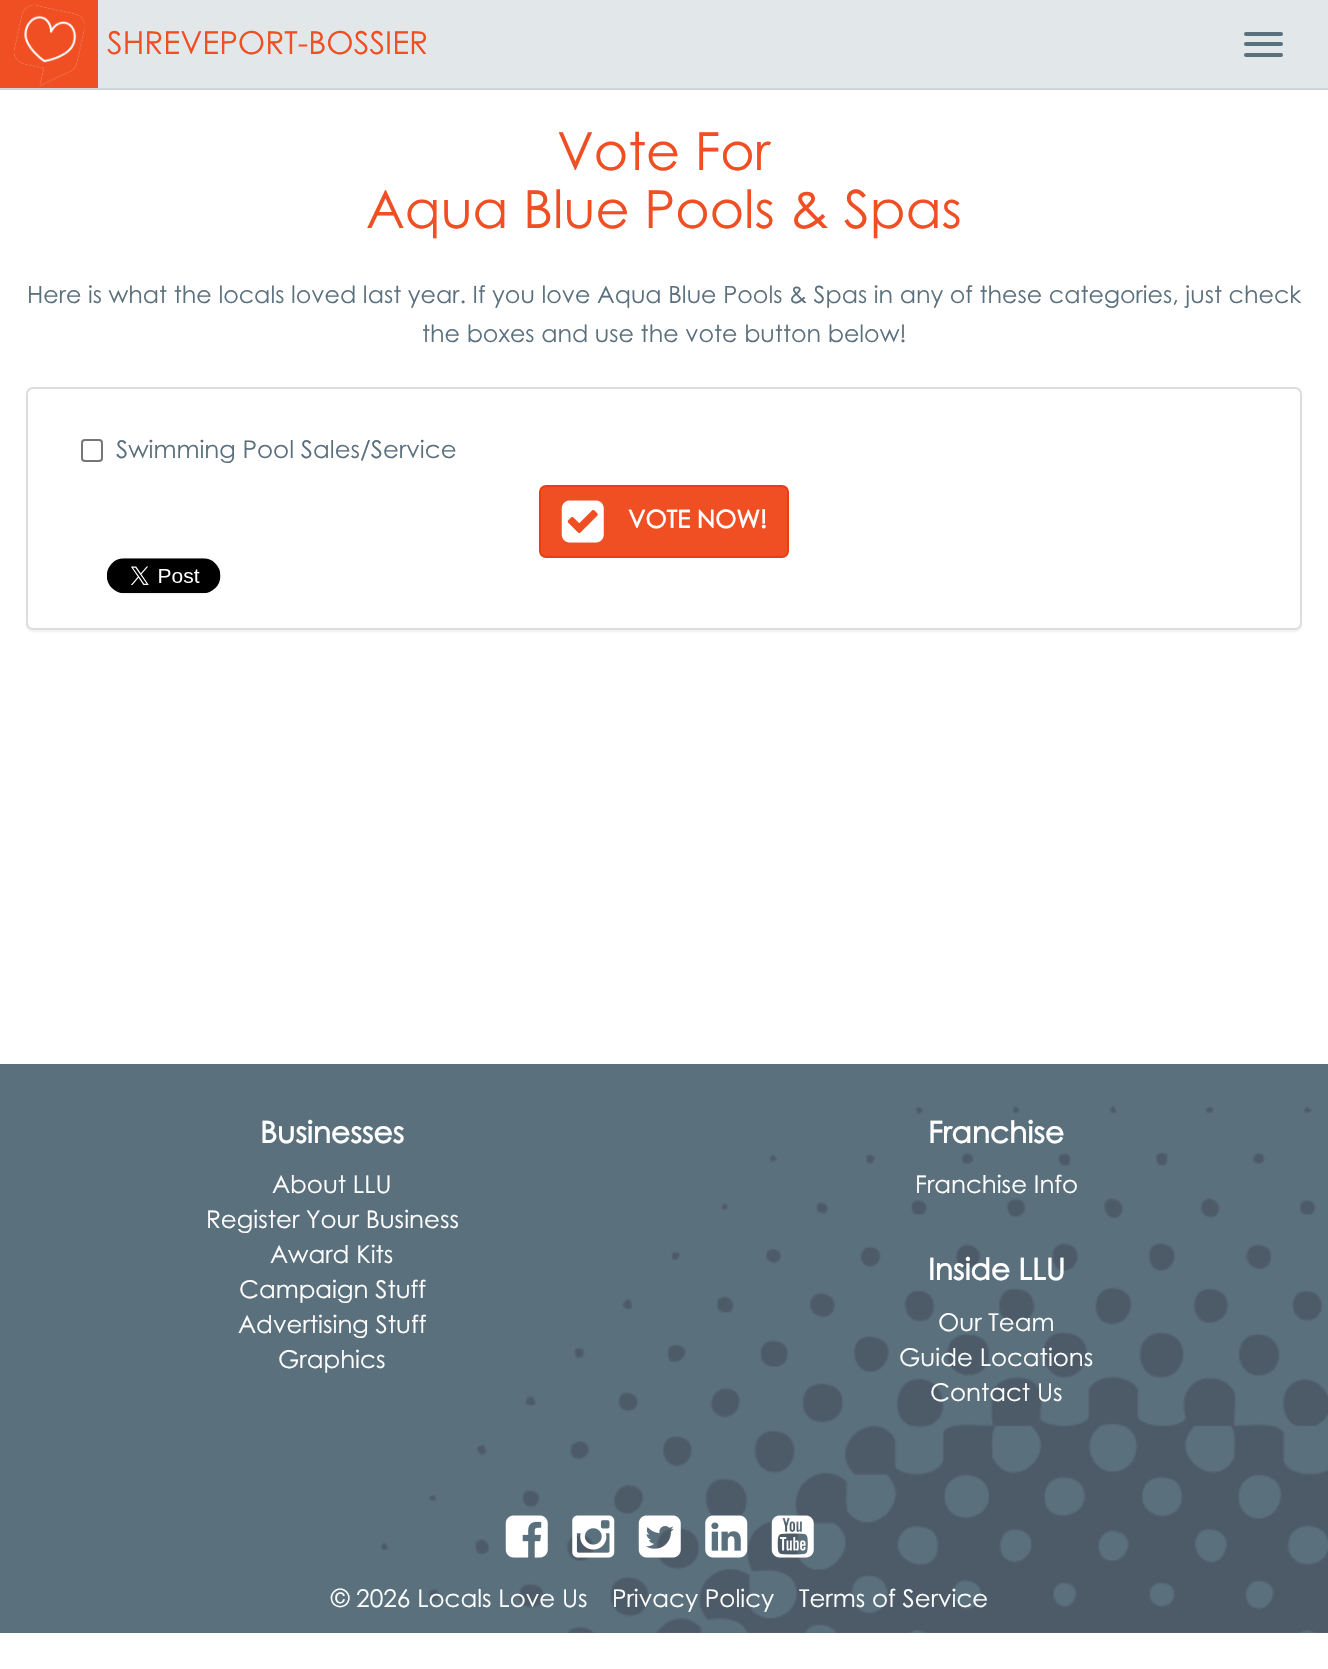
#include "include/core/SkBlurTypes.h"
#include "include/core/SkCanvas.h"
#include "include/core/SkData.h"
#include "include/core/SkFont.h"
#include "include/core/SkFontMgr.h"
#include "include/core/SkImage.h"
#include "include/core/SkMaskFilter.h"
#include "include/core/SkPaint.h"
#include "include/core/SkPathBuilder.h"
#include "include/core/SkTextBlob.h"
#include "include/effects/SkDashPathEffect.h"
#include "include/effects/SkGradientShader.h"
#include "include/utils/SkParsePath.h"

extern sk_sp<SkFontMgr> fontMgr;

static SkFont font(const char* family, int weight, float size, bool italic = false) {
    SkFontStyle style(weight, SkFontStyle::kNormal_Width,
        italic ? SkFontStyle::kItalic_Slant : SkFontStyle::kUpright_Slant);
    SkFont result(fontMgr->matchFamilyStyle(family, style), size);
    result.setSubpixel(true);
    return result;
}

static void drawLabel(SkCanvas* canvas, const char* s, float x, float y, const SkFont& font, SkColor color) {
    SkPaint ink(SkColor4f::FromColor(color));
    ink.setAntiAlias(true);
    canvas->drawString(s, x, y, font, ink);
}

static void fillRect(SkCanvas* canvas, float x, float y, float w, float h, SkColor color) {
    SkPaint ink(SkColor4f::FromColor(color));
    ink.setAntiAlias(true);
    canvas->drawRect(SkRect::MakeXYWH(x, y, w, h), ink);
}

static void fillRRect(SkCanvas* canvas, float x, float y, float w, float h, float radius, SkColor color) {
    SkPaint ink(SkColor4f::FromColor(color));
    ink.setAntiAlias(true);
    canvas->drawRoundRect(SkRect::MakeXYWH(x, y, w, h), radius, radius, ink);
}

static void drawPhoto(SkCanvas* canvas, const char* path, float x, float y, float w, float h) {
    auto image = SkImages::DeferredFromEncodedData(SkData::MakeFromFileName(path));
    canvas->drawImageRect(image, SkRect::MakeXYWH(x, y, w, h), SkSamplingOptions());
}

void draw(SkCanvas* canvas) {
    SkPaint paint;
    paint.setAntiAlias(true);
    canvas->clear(0xFFFFFFFF);
    fillRect(canvas, 98, 0, 1230, 88, 0xFFE2E7EA);
    fillRect(canvas, 0, 88, 1328, 2, 0xFFCFD7DC);
    fillRect(canvas, 0, 0, 98, 88, 0xFFF04E23);
    drawPhoto(canvas, "assets/img1.png", 14, 5, 71, 81);
    SkFont font1 = font("Century Gothic", 400, 31.5f);
    drawLabel(canvas, "SHREVEPORT-BOSSIER", 107, 54, font1, 0xFFF04E23);
    fillRRect(canvas, 1244, 32, 39, 4, 2, 0xFF5B707D);
    fillRRect(canvas, 1244, 42, 39, 4, 2, 0xFF5B707D);
    fillRRect(canvas, 1244, 53, 39, 4, 2, 0xFF5B707D);
    SkFont font2 = font("Century Gothic", 400, 52.5f);
    drawLabel(canvas, "Vote For", 557, 170, font2, 0xFFF04E23);
    drawLabel(canvas, "Aqua Blue Pools & Spas", 366, 228, font2, 0xFFF04E23);
    SkFont font3 = font("Century Gothic", 400, 23.8f);
    drawLabel(canvas, "Here is what the locals loved last year. If you love Aqua Blue Pools & Spas in any of these categories, just check", 27, 303, font3, 0xFF5B707D);
    drawLabel(canvas, "the boxes and use the vote button below!", 422, 342, font3, 0xFF5B707D);
    paint.setColor(0x0D000000);
    paint.setMaskFilter(SkMaskFilter::MakeBlur(kNormal_SkBlurStyle, 1));
    canvas->drawRoundRect(SkRect::MakeXYWH(26, 389, 1276, 243), 7, 7, paint);
    paint.setMaskFilter(nullptr);
    paint.setColor(0xFFFFFFFF);
    canvas->drawRoundRect(SkRect::MakeXYWH(27, 388, 1274, 241), 6, 6, paint);
    paint.setStroke(true);
    paint.setStrokeWidth(2);
    paint.setColor(0xFFDDDDDD);
    canvas->drawRoundRect(SkRect::MakeXYWH(27, 388, 1274, 241), 6, 6, paint);
    paint.setColor(0xFF767676);
    canvas->drawRoundRect(SkRect::MakeXYWH(82, 440, 20, 21), 3, 3, paint);
    SkFont font4 = font("Century Gothic", 400, 24.5f);
    drawLabel(canvas, "Swimming Pool Sales/Service", 116, 458, font4, 0xFF5B707D);
    paint.setStroke(false);
    paint.setColor(0xFFF04E23);
    canvas->drawRoundRect(SkRect::MakeXYWH(540, 486, 248, 71), 6, 6, paint);
    paint.setStroke(true);
    paint.setColor(0xFFEA3E10);
    canvas->drawRoundRect(SkRect::MakeXYWH(540, 486, 248, 71), 6, 6, paint);
    drawPhoto(canvas, "assets/img2.png", 561, 500, 43, 43);
    SkFont font5 = font("Century Gothic", 700, 24.5f);
    drawLabel(canvas, "VOTE NOW!", 628, 528, font5, 0xFFFFFFFF);
    drawPhoto(canvas, "assets/img3.png", 106, 558, 115, 36);
    fillRect(canvas, 0, 1064, 1328, 569, 0xFF5B707D);
    drawPhoto(canvas, "assets/img4.png", 381, 1106, 947, 527);
    SkFont font6 = font("Century Gothic", 700, 29.75f);
    drawLabel(canvas, "Businesses", 260, 1143, font6, 0xFFFFFFFF);
    drawLabel(canvas, "About LLU", 272, 1193, font4, 0xFFFFFFFF);
    drawLabel(canvas, "Register Your Business", 206, 1228, font4, 0xFFFFFFFF);
    drawLabel(canvas, "Award Kits", 270, 1263, font4, 0xFFFFFFFF);
    drawLabel(canvas, "Campaign Stuff", 239, 1298, font4, 0xFFFFFFFF);
    drawLabel(canvas, "Advertising Stuff", 238, 1333, font4, 0xFFFFFFFF);
    drawLabel(canvas, "Graphics", 278, 1368, font4, 0xFFFFFFFF);
    drawLabel(canvas, "Franchise", 928, 1143, font6, 0xFFFFFFFF);
    drawLabel(canvas, "Franchise Info", 915, 1193, font4, 0xFFFFFFFF);
    drawLabel(canvas, "Inside LLU", 928, 1280, font6, 0xFFFFFFFF);
    drawLabel(canvas, "Our Team", 938, 1331, font4, 0xFFFFFFFF);
    drawLabel(canvas, "Guide Locations", 899, 1366, font4, 0xFFFFFFFF);
    drawLabel(canvas, "Contact Us", 930, 1401, font4, 0xFFFFFFFF);
    drawPhoto(canvas, "assets/img5.png", 505, 1515, 43, 43);
    drawPhoto(canvas, "assets/img6.png", 572, 1515, 43, 43);
    drawPhoto(canvas, "assets/img7.png", 638, 1515, 43, 43);
    drawPhoto(canvas, "assets/img8.png", 705, 1515, 43, 43);
    drawPhoto(canvas, "assets/img9.png", 771, 1515, 43, 43);
    drawLabel(canvas, "© 2026 Locals Love Us", 331, 1607, font4, 0xFFFFFFFF);
    drawLabel(canvas, "Privacy Policy", 612, 1607, font4, 0xFFFFFFFF);
    drawLabel(canvas, "Terms of Service", 799, 1607, font4, 0xFFFFFFFF);
}
